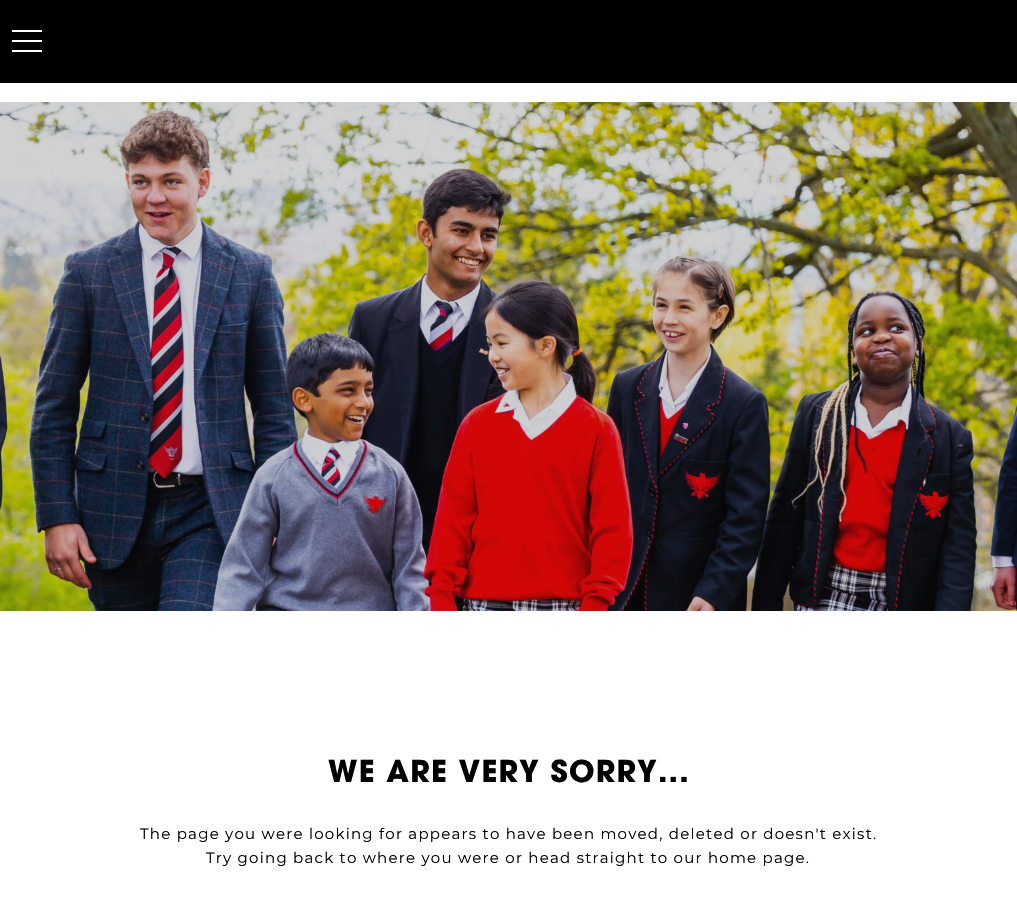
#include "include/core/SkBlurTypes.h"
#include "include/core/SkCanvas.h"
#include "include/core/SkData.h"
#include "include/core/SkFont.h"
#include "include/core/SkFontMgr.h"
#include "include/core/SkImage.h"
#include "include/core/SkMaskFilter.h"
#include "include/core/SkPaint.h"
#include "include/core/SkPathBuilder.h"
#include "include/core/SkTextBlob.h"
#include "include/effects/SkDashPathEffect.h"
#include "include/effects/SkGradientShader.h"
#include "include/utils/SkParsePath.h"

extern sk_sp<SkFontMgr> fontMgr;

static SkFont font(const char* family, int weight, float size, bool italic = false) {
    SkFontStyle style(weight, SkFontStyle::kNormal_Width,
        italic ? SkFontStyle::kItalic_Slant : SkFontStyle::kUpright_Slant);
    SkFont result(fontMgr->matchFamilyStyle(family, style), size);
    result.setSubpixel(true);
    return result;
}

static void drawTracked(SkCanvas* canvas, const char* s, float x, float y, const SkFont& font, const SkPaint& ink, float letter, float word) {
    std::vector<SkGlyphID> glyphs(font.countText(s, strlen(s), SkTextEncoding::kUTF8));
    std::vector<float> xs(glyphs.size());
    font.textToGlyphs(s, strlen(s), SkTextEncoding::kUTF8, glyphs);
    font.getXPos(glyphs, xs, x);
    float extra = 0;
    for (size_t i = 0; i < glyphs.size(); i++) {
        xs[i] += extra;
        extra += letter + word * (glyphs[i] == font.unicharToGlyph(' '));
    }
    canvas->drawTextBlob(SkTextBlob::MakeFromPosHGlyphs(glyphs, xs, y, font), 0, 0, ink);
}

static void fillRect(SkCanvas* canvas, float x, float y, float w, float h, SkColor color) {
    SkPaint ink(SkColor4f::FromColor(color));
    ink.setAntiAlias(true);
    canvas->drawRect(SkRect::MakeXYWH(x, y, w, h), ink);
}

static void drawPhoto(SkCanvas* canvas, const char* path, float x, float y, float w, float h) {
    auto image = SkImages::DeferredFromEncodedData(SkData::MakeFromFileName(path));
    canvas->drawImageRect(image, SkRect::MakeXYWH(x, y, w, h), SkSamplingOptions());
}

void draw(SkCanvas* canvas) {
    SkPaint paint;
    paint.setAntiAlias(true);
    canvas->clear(0xFFFFFFFF);
    fillRect(canvas, 0, 0, 1017, 83, 0xFF000000);
    fillRect(canvas, 12, 30, 30, 2, 0xFFFFFFFF);
    fillRect(canvas, 12, 40, 30, 2, 0xFFFFFFFF);
    fillRect(canvas, 12, 50, 30, 2, 0xFFFFFFFF);
    drawPhoto(canvas, "assets/img1.png", 0, 102, 1017, 509);
    SkFont font1 = font("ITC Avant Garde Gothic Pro", 700, 30);
    paint.setColor(0xFF000000);
    drawTracked(canvas, "WE ARE VERY SORRY...", 328, 782, font1, paint, 1.23f, 0);
    SkFont font2 = font("Montserrat", 400, 15);
    drawTracked(canvas, "The page you were looking for appears to have been moved, deleted or doesn't exist.", 140, 839, font2, paint, 1.23f, 0);
    drawTracked(canvas, "Try going back to where you were or head straight to our home page.", 206, 863, font2, paint, 1.23f, 0);
}
